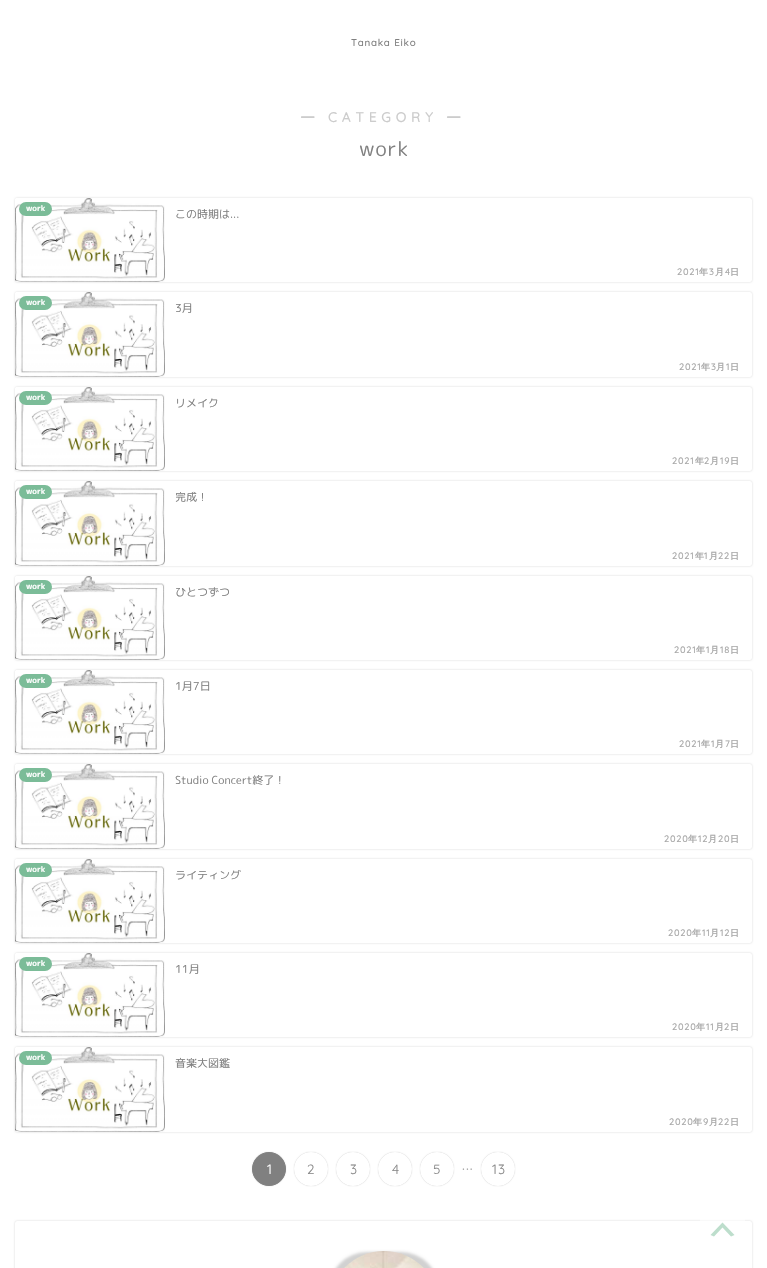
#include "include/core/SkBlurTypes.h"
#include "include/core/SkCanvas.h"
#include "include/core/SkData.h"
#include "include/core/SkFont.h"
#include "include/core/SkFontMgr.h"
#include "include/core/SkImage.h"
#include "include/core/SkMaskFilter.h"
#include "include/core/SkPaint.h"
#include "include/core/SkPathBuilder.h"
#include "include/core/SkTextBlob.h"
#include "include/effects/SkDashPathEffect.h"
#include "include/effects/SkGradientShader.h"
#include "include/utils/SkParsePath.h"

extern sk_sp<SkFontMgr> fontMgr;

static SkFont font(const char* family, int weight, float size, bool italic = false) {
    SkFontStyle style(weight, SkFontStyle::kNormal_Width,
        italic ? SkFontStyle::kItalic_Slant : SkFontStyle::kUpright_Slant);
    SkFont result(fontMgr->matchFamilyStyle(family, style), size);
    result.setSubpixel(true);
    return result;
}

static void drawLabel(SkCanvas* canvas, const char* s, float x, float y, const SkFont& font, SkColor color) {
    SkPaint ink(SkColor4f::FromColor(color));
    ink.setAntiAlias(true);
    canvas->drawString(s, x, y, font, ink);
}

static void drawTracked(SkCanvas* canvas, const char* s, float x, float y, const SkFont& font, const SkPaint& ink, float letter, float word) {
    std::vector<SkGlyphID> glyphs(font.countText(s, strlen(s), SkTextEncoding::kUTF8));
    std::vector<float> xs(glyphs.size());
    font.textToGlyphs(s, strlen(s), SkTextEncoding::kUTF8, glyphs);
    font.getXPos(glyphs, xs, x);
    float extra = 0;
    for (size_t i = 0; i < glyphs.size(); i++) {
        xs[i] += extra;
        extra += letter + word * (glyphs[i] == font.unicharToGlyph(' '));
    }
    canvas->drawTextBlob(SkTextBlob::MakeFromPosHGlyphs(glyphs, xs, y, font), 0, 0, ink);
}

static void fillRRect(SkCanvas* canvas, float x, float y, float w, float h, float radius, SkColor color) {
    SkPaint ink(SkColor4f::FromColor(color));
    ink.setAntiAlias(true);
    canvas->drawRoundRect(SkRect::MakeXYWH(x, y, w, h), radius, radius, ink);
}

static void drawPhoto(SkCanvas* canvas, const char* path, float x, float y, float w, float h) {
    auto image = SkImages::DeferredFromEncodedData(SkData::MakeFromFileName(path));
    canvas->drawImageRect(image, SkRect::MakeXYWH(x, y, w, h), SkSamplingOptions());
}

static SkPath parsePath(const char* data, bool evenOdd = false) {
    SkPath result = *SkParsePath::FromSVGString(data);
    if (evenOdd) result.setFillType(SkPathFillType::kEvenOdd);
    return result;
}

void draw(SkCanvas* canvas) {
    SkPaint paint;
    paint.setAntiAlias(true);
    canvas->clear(0xFFFFFFFF);
    SkFont font1 = font("Quicksand", 700, 9.5f);
    paint.setColor(0xFF808080);
    drawTracked(canvas, "Tanaka Eiko", 351, 46, font1, paint, 1, 0);
    SkFont font2 = font("Rounded Mplus 1c Bold", 700, 13.5f);
    paint.setColor(0xFFCCCCCC);
    drawTracked(canvas, "―", 301, 122, font2, paint, 5, 0);
    SkFont font3 = font("Quicksand", 700, 13.5f);
    drawTracked(canvas, "CATEGORY", 328, 122, font3, paint, 5, 0);
    drawTracked(canvas, "―", 447, 122, font2, paint, 5, 0);
    SkFont font4 = font("Rounded Mplus 1c", 400, 20);
    paint.setColor(0xFF808080);
    drawTracked(canvas, "work", 359, 156, font4, paint, 1, 0);
    paint.setColor(0x2E000000);
    paint.setMaskFilter(SkMaskFilter::MakeBlur(kNormal_SkBlurStyle, 1));
    canvas->drawRoundRect(SkRect::MakeXYWH(15, 198, 737, 84), 2, 2, paint);
    paint.setMaskFilter(nullptr);
    fillRRect(canvas, 15, 198, 737, 84, 2, 0xFFFFFFFF);
    drawPhoto(canvas, "assets/img1.png", 15, 198, 150, 84);
    fillRRect(canvas, 19, 202, 33, 14, 7, 0xFF7BBC98);
    SkFont font5 = font("Rounded Mplus 1c Bold", 700, 8);
    drawLabel(canvas, "work", 26, 211, font5, 0xFFFFFFFF);
    SkFont font6 = font("Rounded Mplus 1c", 400, 11);
    drawLabel(canvas, "この時期は...", 175, 218, font6, 0xFF808080);
    SkFont font7 = font("Quicksand", 700, 9);
    paint.setColor(0xFFAAAAAA);
    drawTracked(canvas, "2021", 677, 275, font7, paint, 1, 0);
    SkFont font8 = font("WenQuanYi Zen Hei", 700, 9);
    drawTracked(canvas, "年", 699, 275, font8, paint, 1, 0);
    drawTracked(canvas, "3", 709, 275, font7, paint, 1, 0);
    drawTracked(canvas, "月", 715, 275, font8, paint, 1, 0);
    drawTracked(canvas, "4", 725, 275, font7, paint, 1, 0);
    drawTracked(canvas, "日", 730, 275, font8, paint, 1, 0);
    paint.setColor(0x2E000000);
    paint.setMaskFilter(SkMaskFilter::MakeBlur(kNormal_SkBlurStyle, 1));
    canvas->drawRoundRect(SkRect::MakeXYWH(15, 292, 737, 85), 2, 2, paint);
    paint.setMaskFilter(nullptr);
    fillRRect(canvas, 15, 292, 737, 85, 2, 0xFFFFFFFF);
    drawPhoto(canvas, "assets/img2.png", 15, 292, 150, 85);
    fillRRect(canvas, 19, 296, 33, 14, 7, 0xFF7BBC98);
    drawLabel(canvas, "work", 26, 305, font5, 0xFFFFFFFF);
    drawLabel(canvas, "3月", 175, 312, font6, 0xFF808080);
    paint.setColor(0xFFAAAAAA);
    drawTracked(canvas, "2021", 679, 370, font7, paint, 1, 0);
    drawTracked(canvas, "年", 701, 370, font8, paint, 1, 0);
    drawTracked(canvas, "3", 711, 370, font7, paint, 1, 0);
    drawTracked(canvas, "月", 716, 370, font8, paint, 1, 0);
    drawTracked(canvas, "1", 726, 370, font7, paint, 1, 0);
    drawTracked(canvas, "日", 730, 370, font8, paint, 1, 0);
    paint.setColor(0x2E000000);
    paint.setMaskFilter(SkMaskFilter::MakeBlur(kNormal_SkBlurStyle, 1));
    canvas->drawRoundRect(SkRect::MakeXYWH(15, 387, 737, 84), 2, 2, paint);
    paint.setMaskFilter(nullptr);
    fillRRect(canvas, 15, 387, 737, 84, 2, 0xFFFFFFFF);
    drawPhoto(canvas, "assets/img3.png", 15, 387, 150, 84);
    fillRRect(canvas, 19, 391, 33, 14, 7, 0xFF7BBC98);
    drawLabel(canvas, "work", 26, 400, font5, 0xFFFFFFFF);
    drawLabel(canvas, "リメイク", 175, 407, font6, 0xFF808080);
    paint.setColor(0xFFAAAAAA);
    drawTracked(canvas, "2021", 672, 464, font7, paint, 1, 0);
    drawTracked(canvas, "年", 695, 464, font8, paint, 1, 0);
    drawTracked(canvas, "2", 704, 464, font7, paint, 1, 0);
    drawTracked(canvas, "月", 710, 464, font8, paint, 1, 0);
    drawTracked(canvas, "19", 720, 464, font7, paint, 1, 0);
    drawTracked(canvas, "日", 730, 464, font8, paint, 1, 0);
    paint.setColor(0x2E000000);
    paint.setMaskFilter(SkMaskFilter::MakeBlur(kNormal_SkBlurStyle, 1));
    canvas->drawRoundRect(SkRect::MakeXYWH(15, 481, 737, 85), 2, 2, paint);
    paint.setMaskFilter(nullptr);
    fillRRect(canvas, 15, 481, 737, 85, 2, 0xFFFFFFFF);
    drawPhoto(canvas, "assets/img2.png", 15, 481, 150, 85);
    fillRRect(canvas, 19, 485, 33, 14, 7, 0xFF7BBC98);
    drawLabel(canvas, "work", 26, 494, font5, 0xFFFFFFFF);
    drawLabel(canvas, "完成！", 175, 501, font6, 0xFF808080);
    paint.setColor(0xFFAAAAAA);
    drawTracked(canvas, "2021", 672, 559, font7, paint, 1, 0);
    drawTracked(canvas, "年", 695, 559, font8, paint, 1, 0);
    drawTracked(canvas, "1", 704, 559, font7, paint, 1, 0);
    drawTracked(canvas, "月", 709, 559, font8, paint, 1, 0);
    drawTracked(canvas, "22", 718, 559, font7, paint, 1, 0);
    drawTracked(canvas, "日", 730, 559, font8, paint, 1, 0);
    paint.setColor(0x2E000000);
    paint.setMaskFilter(SkMaskFilter::MakeBlur(kNormal_SkBlurStyle, 1));
    canvas->drawRoundRect(SkRect::MakeXYWH(15, 576, 737, 84), 2, 2, paint);
    paint.setMaskFilter(nullptr);
    fillRRect(canvas, 15, 576, 737, 84, 2, 0xFFFFFFFF);
    drawPhoto(canvas, "assets/img4.png", 15, 576, 150, 84);
    fillRRect(canvas, 19, 580, 33, 14, 7, 0xFF7BBC98);
    drawLabel(canvas, "work", 26, 589, font5, 0xFFFFFFFF);
    drawLabel(canvas, "ひとつずつ", 175, 596, font6, 0xFF808080);
    paint.setColor(0xFFAAAAAA);
    drawTracked(canvas, "2021", 674, 653, font7, paint, 1, 0);
    drawTracked(canvas, "年", 696, 653, font8, paint, 1, 0);
    drawTracked(canvas, "1", 706, 653, font7, paint, 1, 0);
    drawTracked(canvas, "月", 710, 653, font8, paint, 1, 0);
    drawTracked(canvas, "18", 720, 653, font7, paint, 1, 0);
    drawTracked(canvas, "日", 730, 653, font8, paint, 1, 0);
    paint.setColor(0x2E000000);
    paint.setMaskFilter(SkMaskFilter::MakeBlur(kNormal_SkBlurStyle, 1));
    canvas->drawRoundRect(SkRect::MakeXYWH(15, 670, 737, 84), 2, 2, paint);
    paint.setMaskFilter(nullptr);
    fillRRect(canvas, 15, 670, 737, 84, 2, 0xFFFFFFFF);
    drawPhoto(canvas, "assets/img5.png", 15, 670, 150, 84);
    fillRRect(canvas, 19, 674, 33, 14, 7, 0xFF7BBC98);
    drawLabel(canvas, "work", 26, 683, font5, 0xFFFFFFFF);
    drawLabel(canvas, "1月7日", 175, 690, font6, 0xFF808080);
    paint.setColor(0xFFAAAAAA);
    drawTracked(canvas, "2021", 679, 747, font7, paint, 1, 0);
    drawTracked(canvas, "年", 701, 747, font8, paint, 1, 0);
    drawTracked(canvas, "1", 711, 747, font7, paint, 1, 0);
    drawTracked(canvas, "月", 715, 747, font8, paint, 1, 0);
    drawTracked(canvas, "7", 725, 747, font7, paint, 1, 0);
    drawTracked(canvas, "日", 730, 747, font8, paint, 1, 0);
    paint.setColor(0x2E000000);
    paint.setMaskFilter(SkMaskFilter::MakeBlur(kNormal_SkBlurStyle, 1));
    canvas->drawRoundRect(SkRect::MakeXYWH(15, 764, 737, 85), 2, 2, paint);
    paint.setMaskFilter(nullptr);
    fillRRect(canvas, 15, 764, 737, 85, 2, 0xFFFFFFFF);
    drawPhoto(canvas, "assets/img2.png", 15, 764, 150, 85);
    fillRRect(canvas, 19, 768, 33, 14, 7, 0xFF7BBC98);
    drawLabel(canvas, "work", 26, 777, font5, 0xFFFFFFFF);
    drawLabel(canvas, "Studio Concert終了！", 175, 784, font6, 0xFF808080);
    paint.setColor(0xFFAAAAAA);
    drawTracked(canvas, "2020", 664, 842, font7, paint, 1, 0);
    drawTracked(canvas, "年", 688, 842, font8, paint, 1, 0);
    drawTracked(canvas, "12", 698, 842, font7, paint, 1, 0);
    drawTracked(canvas, "月", 708, 842, font8, paint, 1, 0);
    drawTracked(canvas, "20", 718, 842, font7, paint, 1, 0);
    drawTracked(canvas, "日", 730, 842, font8, paint, 1, 0);
    paint.setColor(0x2E000000);
    paint.setMaskFilter(SkMaskFilter::MakeBlur(kNormal_SkBlurStyle, 1));
    canvas->drawRoundRect(SkRect::MakeXYWH(15, 859, 737, 84), 2, 2, paint);
    paint.setMaskFilter(nullptr);
    fillRRect(canvas, 15, 859, 737, 84, 2, 0xFFFFFFFF);
    drawPhoto(canvas, "assets/img6.png", 15, 859, 150, 84);
    fillRRect(canvas, 19, 863, 33, 14, 7, 0xFF7BBC98);
    drawLabel(canvas, "work", 26, 872, font5, 0xFFFFFFFF);
    drawLabel(canvas, "ライティング", 175, 879, font6, 0xFF808080);
    paint.setColor(0xFFAAAAAA);
    drawTracked(canvas, "2020", 668, 936, font7, paint, 1, 0);
    drawTracked(canvas, "年", 692, 936, font8, paint, 1, 0);
    drawTracked(canvas, "11", 702, 936, font7, paint, 1, 0);
    drawTracked(canvas, "月", 710, 936, font8, paint, 1, 0);
    drawTracked(canvas, "12", 720, 936, font7, paint, 1, 0);
    drawTracked(canvas, "日", 730, 936, font8, paint, 1, 0);
    paint.setColor(0x2E000000);
    paint.setMaskFilter(SkMaskFilter::MakeBlur(kNormal_SkBlurStyle, 1));
    canvas->drawRoundRect(SkRect::MakeXYWH(15, 953, 737, 84), 2, 2, paint);
    paint.setMaskFilter(nullptr);
    fillRRect(canvas, 15, 953, 737, 84, 2, 0xFFFFFFFF);
    drawPhoto(canvas, "assets/img6.png", 15, 953, 150, 84);
    fillRRect(canvas, 19, 957, 33, 14, 7, 0xFF7BBC98);
    drawLabel(canvas, "work", 26, 966, font5, 0xFFFFFFFF);
    drawLabel(canvas, "11月", 175, 973, font6, 0xFF808080);
    paint.setColor(0xFFAAAAAA);
    drawTracked(canvas, "2020", 672, 1030, font7, paint, 1, 0);
    drawTracked(canvas, "年", 696, 1030, font8, paint, 1, 0);
    drawTracked(canvas, "11", 706, 1030, font7, paint, 1, 0);
    drawTracked(canvas, "月", 715, 1030, font8, paint, 1, 0);
    drawTracked(canvas, "2", 724, 1030, font7, paint, 1, 0);
    drawTracked(canvas, "日", 730, 1030, font8, paint, 1, 0);
    paint.setColor(0x2E000000);
    paint.setMaskFilter(SkMaskFilter::MakeBlur(kNormal_SkBlurStyle, 1));
    canvas->drawRoundRect(SkRect::MakeXYWH(15, 1047, 737, 85), 2, 2, paint);
    paint.setMaskFilter(nullptr);
    fillRRect(canvas, 15, 1047, 737, 85, 2, 0xFFFFFFFF);
    drawPhoto(canvas, "assets/img2.png", 15, 1047, 150, 85);
    fillRRect(canvas, 19, 1051, 33, 14, 7, 0xFF7BBC98);
    drawLabel(canvas, "work", 26, 1060, font5, 0xFFFFFFFF);
    drawLabel(canvas, "音楽大図鑑", 175, 1067, font6, 0xFF808080);
    paint.setColor(0xFFAAAAAA);
    drawTracked(canvas, "2020", 669, 1125, font7, paint, 1, 0);
    drawTracked(canvas, "年", 693, 1125, font8, paint, 1, 0);
    drawTracked(canvas, "9", 703, 1125, font7, paint, 1, 0);
    drawTracked(canvas, "月", 709, 1125, font8, paint, 1, 0);
    drawTracked(canvas, "22", 718, 1125, font7, paint, 1, 0);
    drawTracked(canvas, "日", 730, 1125, font8, paint, 1, 0);
    paint.setColor(0x40000000);
    paint.setMaskFilter(SkMaskFilter::MakeBlur(kNormal_SkBlurStyle, 0.5f));
    canvas->drawRoundRect(SkRect::MakeXYWH(252, 1152, 34, 34), 17, 17, paint);
    paint.setMaskFilter(nullptr);
    paint.setColor(0xFF808080);
    canvas->drawCircle(269, 1169, 16.5f, paint);
    paint.setStroke(true);
    paint.setStrokeWidth(1);
    canvas->drawCircle(269, 1169, 16.5f, paint);
    SkFont font9 = font("Quicksand", 300, 13.5f);
    paint.setStroke(false);
    paint.setColor(0xFFFFFFFF);
    drawTracked(canvas, "1", 267, 1174, font9, paint, 1, 0);
    paint.setColor(0x40000000);
    paint.setMaskFilter(SkMaskFilter::MakeBlur(kNormal_SkBlurStyle, 0.5f));
    canvas->drawRoundRect(SkRect::MakeXYWH(294, 1152, 34, 34), 17, 17, paint);
    paint.setMaskFilter(nullptr);
    paint.setColor(0xFFFFFFFF);
    canvas->drawCircle(311, 1169, 17, paint);
    paint.setColor(0xFF888888);
    drawTracked(canvas, "2", 307, 1174, font9, paint, 1, 0);
    paint.setColor(0x40000000);
    paint.setMaskFilter(SkMaskFilter::MakeBlur(kNormal_SkBlurStyle, 0.5f));
    canvas->drawRoundRect(SkRect::MakeXYWH(336, 1152, 34, 34), 17, 17, paint);
    paint.setMaskFilter(nullptr);
    paint.setColor(0xFFFFFFFF);
    canvas->drawCircle(353, 1169, 17, paint);
    paint.setColor(0xFF888888);
    drawTracked(canvas, "3", 350, 1174, font9, paint, 1, 0);
    paint.setColor(0x40000000);
    paint.setMaskFilter(SkMaskFilter::MakeBlur(kNormal_SkBlurStyle, 0.5f));
    canvas->drawRoundRect(SkRect::MakeXYWH(378, 1152, 34, 34), 17, 17, paint);
    paint.setMaskFilter(nullptr);
    paint.setColor(0xFFFFFFFF);
    canvas->drawCircle(395, 1169, 17, paint);
    paint.setColor(0xFF888888);
    drawTracked(canvas, "4", 392, 1174, font9, paint, 1, 0);
    paint.setColor(0x40000000);
    paint.setMaskFilter(SkMaskFilter::MakeBlur(kNormal_SkBlurStyle, 0.5f));
    canvas->drawRoundRect(SkRect::MakeXYWH(420, 1152, 34, 34), 17, 17, paint);
    paint.setMaskFilter(nullptr);
    paint.setColor(0xFFFFFFFF);
    canvas->drawCircle(437, 1169, 17, paint);
    paint.setColor(0xFF888888);
    drawTracked(canvas, "5", 433, 1174, font9, paint, 1, 0);
    SkFont font10 = font("Quicksand", 300, 16);
    paint.setColor(0xFFAAAAAA);
    drawTracked(canvas, "...", 462, 1170, font10, paint, 1, 0);
    paint.setColor(0x40000000);
    paint.setMaskFilter(SkMaskFilter::MakeBlur(kNormal_SkBlurStyle, 0.5f));
    canvas->drawRoundRect(SkRect::MakeXYWH(481, 1152, 34, 34), 17, 17, paint);
    paint.setMaskFilter(nullptr);
    paint.setColor(0xFFFFFFFF);
    canvas->drawCircle(498, 1169, 17, paint);
    paint.setColor(0xFF888888);
    drawTracked(canvas, "13", 492, 1174, font9, paint, 1, 0);
    paint.setColor(0x2E000000);
    paint.setMaskFilter(SkMaskFilter::MakeBlur(kNormal_SkBlurStyle, 1));
    canvas->drawRoundRect(SkRect::MakeXYWH(15, 1221, 737, 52), 2, 2, paint);
    paint.setMaskFilter(nullptr);
    fillRRect(canvas, 15, 1221, 737, 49, 2, 0xFFFFFFFF);
    paint.setMaskFilter(SkMaskFilter::MakeBlur(kNormal_SkBlurStyle, 1.5f));
    canvas->drawRoundRect(SkRect::MakeXYWH(329, 1252, 110, 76), 55, 55, paint);
    paint.setMaskFilter(nullptr);
    drawPhoto(canvas, "assets/img7.png", 344, 1251, 80, 17);
    fillRRect(canvas, 700, 1207, 45, 45, 2, 0x80FFFFFF);
    paint.setColor(0xFFBDDECC);
    canvas->drawPath(parsePath("M731 1236.5L722.5 1227.5L714 1236.5L710.5 1235L722.5 1222.5L734.5 1235Z"), paint);
}
